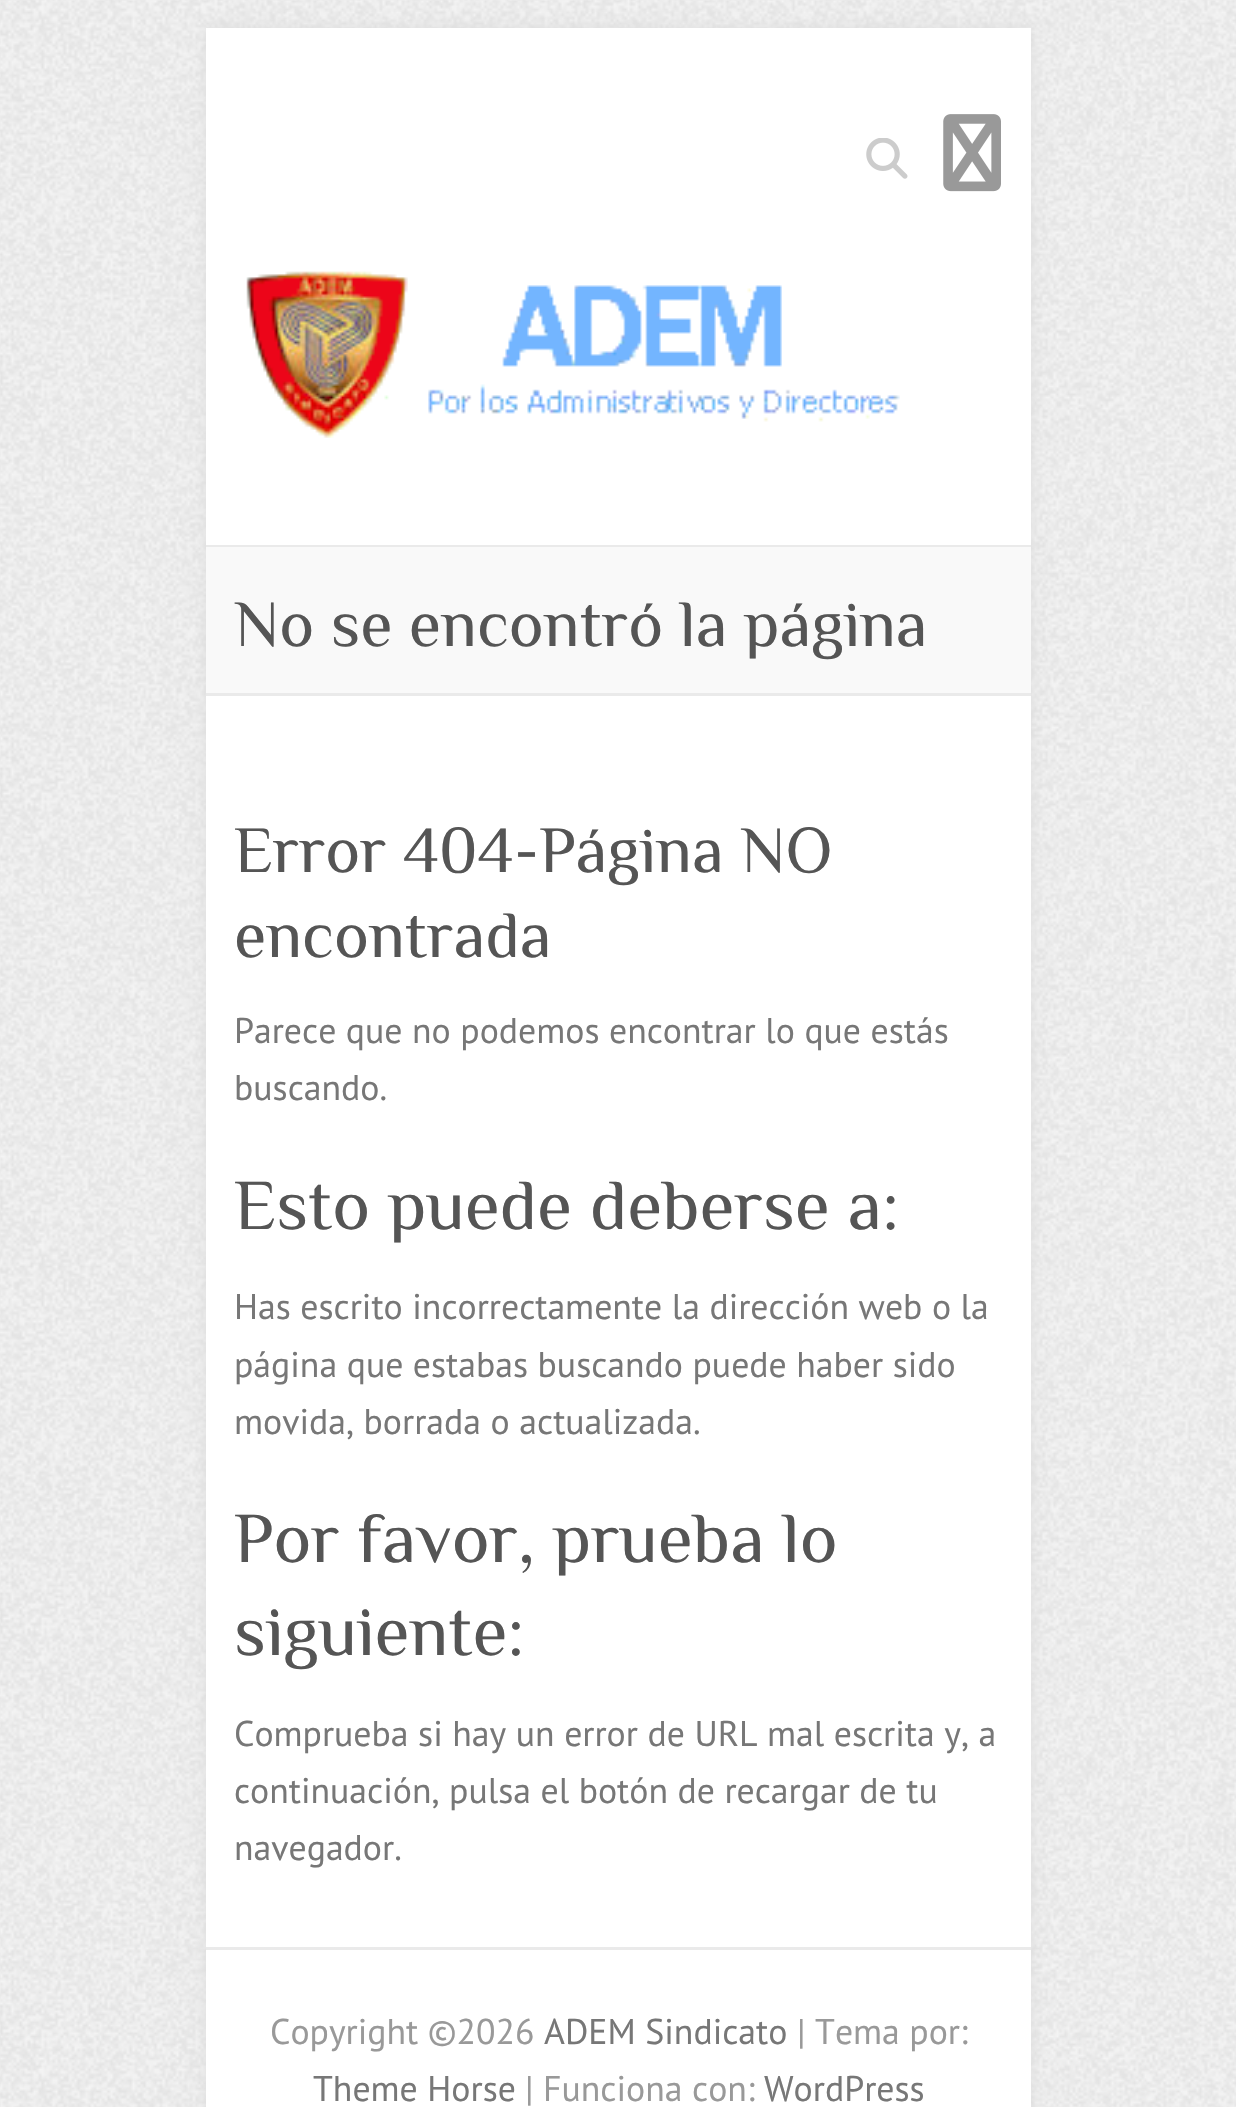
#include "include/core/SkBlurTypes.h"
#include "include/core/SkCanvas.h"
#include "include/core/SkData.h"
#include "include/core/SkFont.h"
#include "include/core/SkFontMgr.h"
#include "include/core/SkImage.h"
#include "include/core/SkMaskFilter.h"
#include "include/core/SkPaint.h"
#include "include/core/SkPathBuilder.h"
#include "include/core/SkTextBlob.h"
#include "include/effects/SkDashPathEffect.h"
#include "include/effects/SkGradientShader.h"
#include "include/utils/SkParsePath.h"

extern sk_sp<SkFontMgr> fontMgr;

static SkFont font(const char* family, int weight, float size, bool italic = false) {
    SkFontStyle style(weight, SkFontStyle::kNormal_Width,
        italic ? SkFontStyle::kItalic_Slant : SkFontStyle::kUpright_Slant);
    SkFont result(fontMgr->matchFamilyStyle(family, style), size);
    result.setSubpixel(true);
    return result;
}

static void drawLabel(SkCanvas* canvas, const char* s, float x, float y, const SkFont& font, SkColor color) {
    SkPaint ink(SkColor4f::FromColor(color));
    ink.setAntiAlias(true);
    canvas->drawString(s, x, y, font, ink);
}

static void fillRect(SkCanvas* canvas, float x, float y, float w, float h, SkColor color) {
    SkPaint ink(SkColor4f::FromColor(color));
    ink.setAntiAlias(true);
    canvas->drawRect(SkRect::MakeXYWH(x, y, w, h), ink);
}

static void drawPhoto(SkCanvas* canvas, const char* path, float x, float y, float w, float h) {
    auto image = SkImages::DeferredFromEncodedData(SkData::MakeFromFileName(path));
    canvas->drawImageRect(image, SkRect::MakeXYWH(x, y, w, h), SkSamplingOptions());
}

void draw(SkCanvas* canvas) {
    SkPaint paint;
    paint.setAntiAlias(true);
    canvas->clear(0xFFFFFFFF);
    drawPhoto(canvas, "assets/img1.png", 0, 0, 1236, 2107);
    paint.setColor(0xFFDDDDDD);
    paint.setMaskFilter(SkMaskFilter::MakeBlur(kNormal_SkBlurStyle, 7));
    canvas->drawRect(SkRect::MakeXYWH(206, 28, 825, 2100), paint);
    paint.setMaskFilter(nullptr);
    fillRect(canvas, 206, 28, 825, 2079, 0xFFFFFFFF);
    drawPhoto(canvas, "assets/img2.png", 866, 138, 42, 41);
    drawPhoto(canvas, "assets/img3.png", 943, 114, 58, 78);
    drawPhoto(canvas, "assets/img4.png", 246, 271, 654, 167);
    fillRect(canvas, 206, 545, 825, 2, 0xFFEAEAEA);
    fillRect(canvas, 206, 547, 825, 146, 0xFFF9F9F9);
    fillRect(canvas, 206, 693, 825, 3, 0xFFEAEAEA);
    SkFont font1 = font("Philosopher", 400, 66);
    drawLabel(canvas, "No se encontró la página", 234, 646, font1, 0xFF555555);
    drawLabel(canvas, "Error 404-Página NO", 234, 872, font1, 0xFF555555);
    drawLabel(canvas, "encontrada", 234, 957, font1, 0xFF555555);
    SkFont font2 = font("PT Sans", 400, 35.75f);
    drawLabel(canvas, "Parece que no podemos encontrar lo que estás", 234, 1043, font2, 0xFF777777);
    drawLabel(canvas, "buscando.", 234, 1100, font2, 0xFF777777);
    SkFont font3 = font("Philosopher", 400, 71.5f);
    drawLabel(canvas, "Esto puede deberse a:", 234, 1229, font3, 0xFF555555);
    drawLabel(canvas, "Has escrito incorrectamente la dirección web o la", 234, 1319, font2, 0xFF777777);
    drawLabel(canvas, "página que estabas buscando puede haber sido", 234, 1377, font2, 0xFF777777);
    drawLabel(canvas, "movida, borrada o actualizada.", 234, 1434, font2, 0xFF777777);
    drawLabel(canvas, "Por favor, prueba lo", 234, 1562, font3, 0xFF555555);
    drawLabel(canvas, "siguiente:", 234, 1655, font3, 0xFF555555);
    drawLabel(canvas, "Comprueba si hay un error de URL mal escrita y, a", 234, 1746, font2, 0xFF777777);
    drawLabel(canvas, "continuación, pulsa el botón de recargar de tu", 234, 1803, font2, 0xFF777777);
    drawLabel(canvas, "navegador.", 234, 1860, font2, 0xFF777777);
    fillRect(canvas, 206, 1947, 825, 3, 0xFFEAEAEA);
    drawLabel(canvas, "Copyright ©2026", 270, 2044, font2, 0xFF999999);
    drawLabel(canvas, "ADEM Sindicato", 544, 2044, font2, 0xFF777777);
    drawLabel(canvas, "| Tema por:", 797, 2044, font2, 0xFF999999);
    drawLabel(canvas, "Theme Horse", 313, 2101, font2, 0xFF777777);
    drawLabel(canvas, "| Funciona con:", 525, 2101, font2, 0xFF999999);
    drawLabel(canvas, "WordPress", 764, 2101, font2, 0xFF777777);
}
